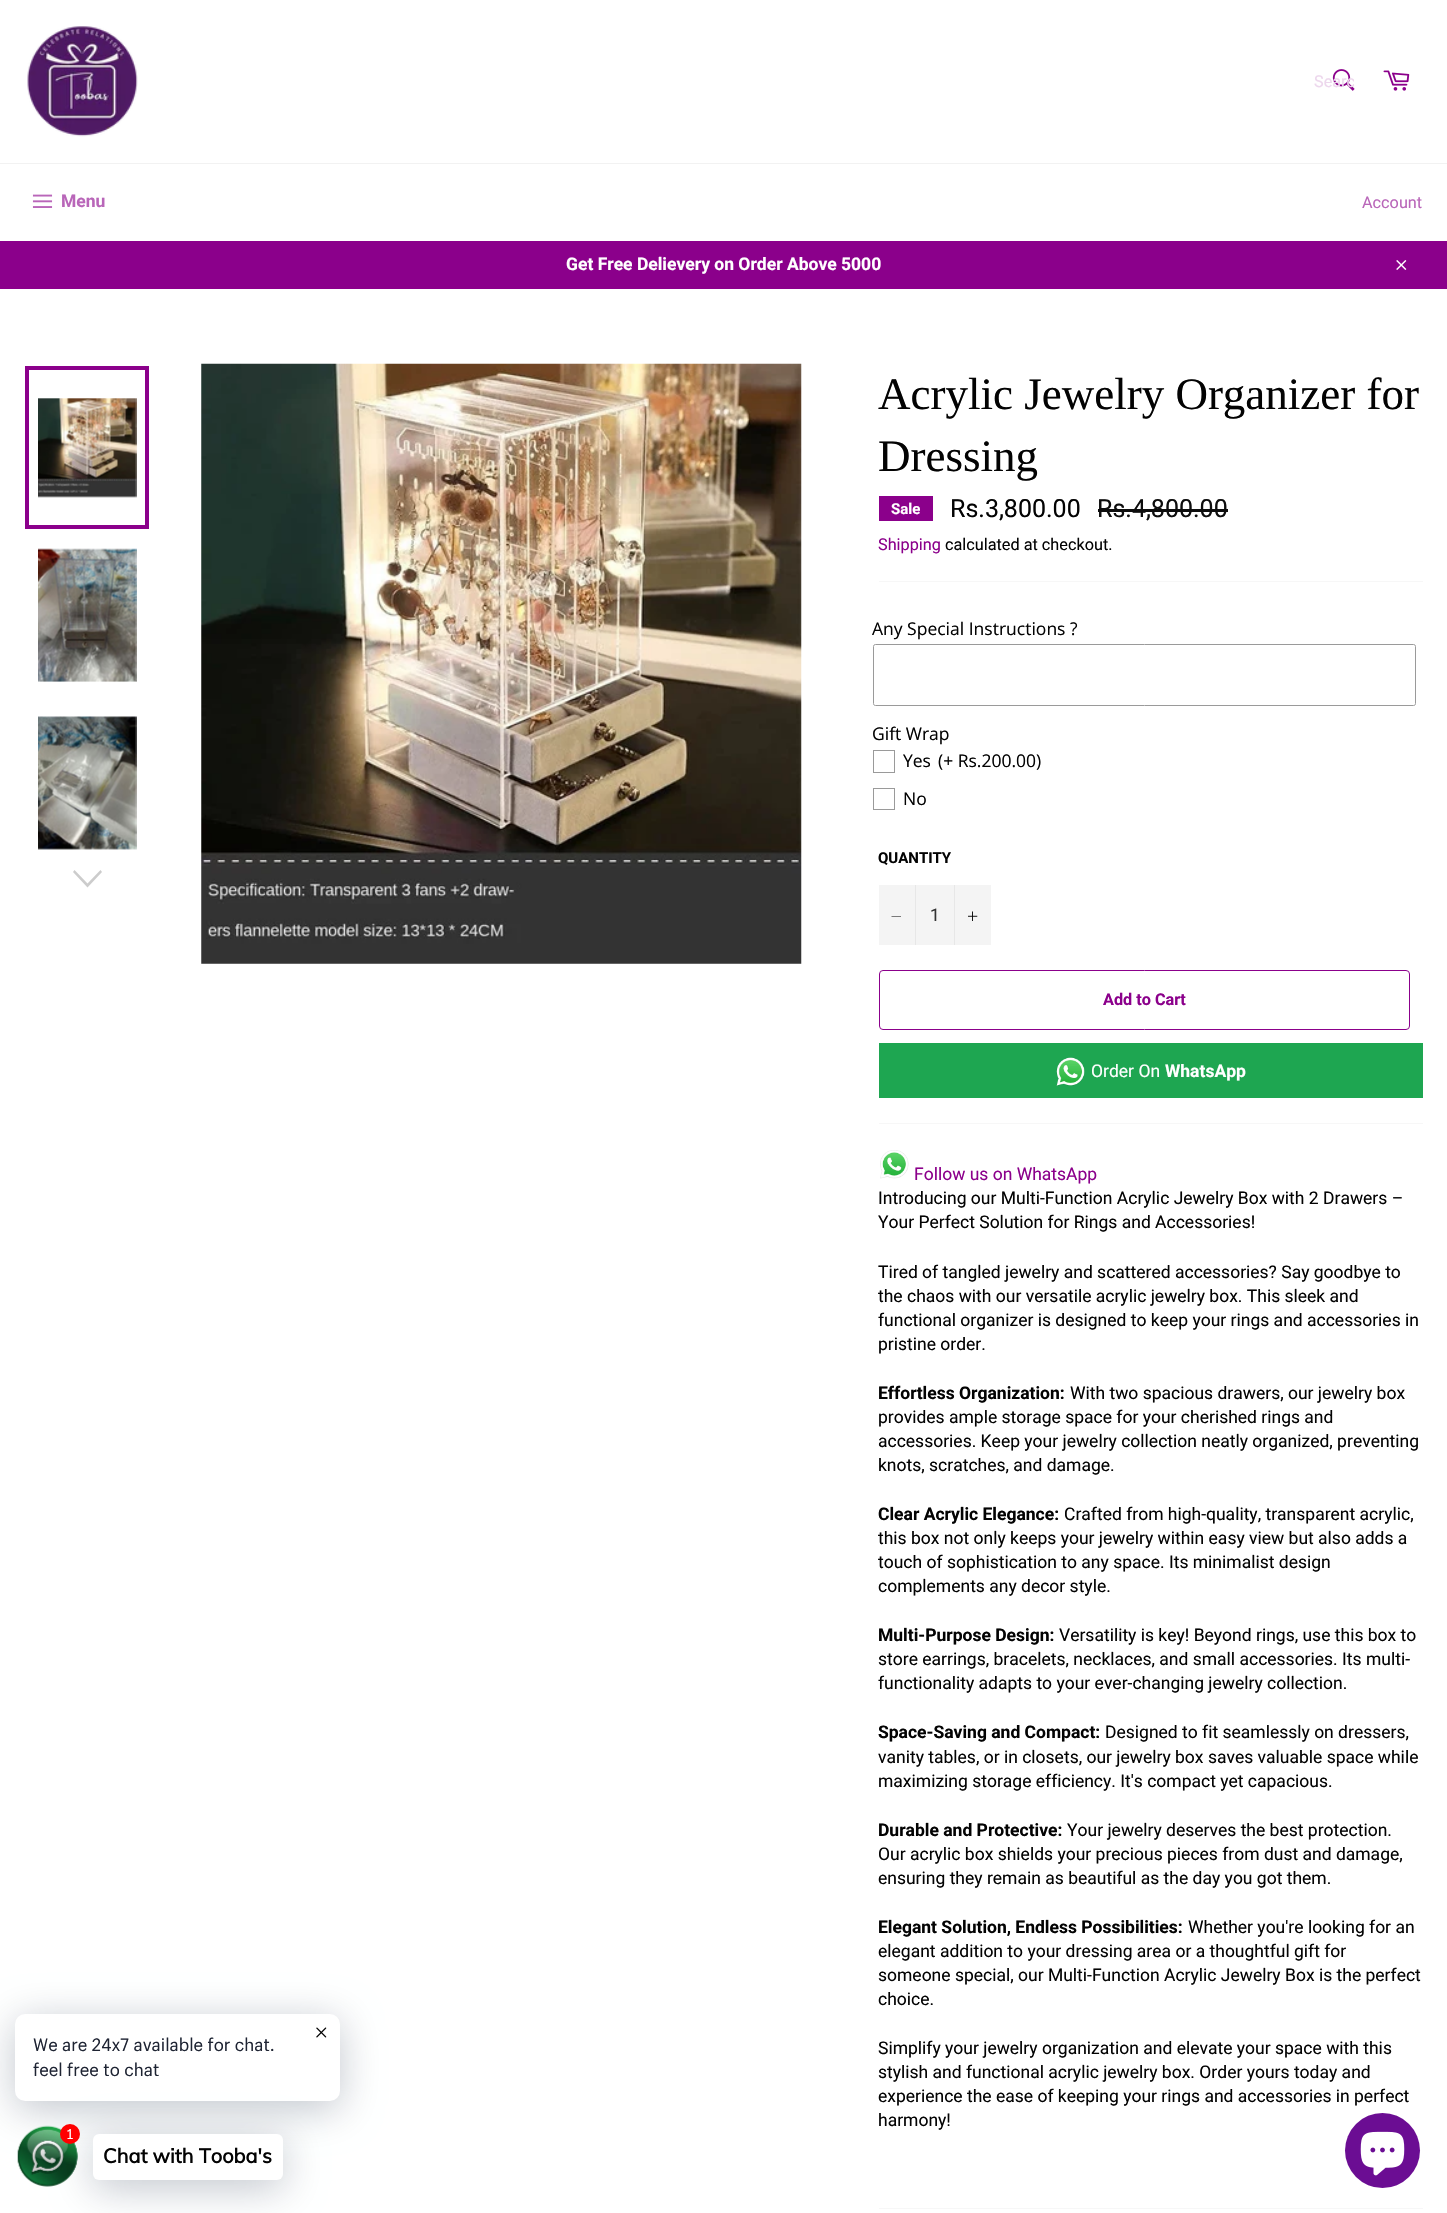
#include "include/core/SkBlurTypes.h"
#include "include/core/SkCanvas.h"
#include "include/core/SkData.h"
#include "include/core/SkFont.h"
#include "include/core/SkFontMgr.h"
#include "include/core/SkImage.h"
#include "include/core/SkMaskFilter.h"
#include "include/core/SkPaint.h"
#include "include/core/SkPathBuilder.h"
#include "include/core/SkTextBlob.h"
#include "include/effects/SkDashPathEffect.h"
#include "include/effects/SkGradientShader.h"
#include "include/utils/SkParsePath.h"

extern sk_sp<SkFontMgr> fontMgr;

static SkFont font(const char* family, int weight, float size, bool italic = false) {
    SkFontStyle style(weight, SkFontStyle::kNormal_Width,
        italic ? SkFontStyle::kItalic_Slant : SkFontStyle::kUpright_Slant);
    SkFont result(fontMgr->matchFamilyStyle(family, style), size);
    result.setSubpixel(true);
    return result;
}

static void drawLabel(SkCanvas* canvas, const char* s, float x, float y, const SkFont& font, SkColor color) {
    SkPaint ink(SkColor4f::FromColor(color));
    ink.setAntiAlias(true);
    canvas->drawString(s, x, y, font, ink);
}

static void fillRect(SkCanvas* canvas, float x, float y, float w, float h, SkColor color) {
    SkPaint ink(SkColor4f::FromColor(color));
    ink.setAntiAlias(true);
    canvas->drawRect(SkRect::MakeXYWH(x, y, w, h), ink);
}

static void fillRRect(SkCanvas* canvas, float x, float y, float w, float h, float radius, SkColor color) {
    SkPaint ink(SkColor4f::FromColor(color));
    ink.setAntiAlias(true);
    canvas->drawRoundRect(SkRect::MakeXYWH(x, y, w, h), radius, radius, ink);
}

static void drawPhoto(SkCanvas* canvas, const char* path, float x, float y, float w, float h) {
    auto image = SkImages::DeferredFromEncodedData(SkData::MakeFromFileName(path));
    canvas->drawImageRect(image, SkRect::MakeXYWH(x, y, w, h), SkSamplingOptions());
}

static SkPath parsePath(const char* data, bool evenOdd = false) {
    SkPath result = *SkParsePath::FromSVGString(data);
    if (evenOdd) result.setFillType(SkPathFillType::kEvenOdd);
    return result;
}

void draw(SkCanvas* canvas) {
    SkPaint paint;
    paint.setAntiAlias(true);
    canvas->clear(0xFFFFFFFF);
    drawPhoto(canvas, "assets/img1.png", 27, 26, 111, 111);
    drawPhoto(canvas, "assets/img2.png", 1332, 69, 23, 22);
    canvas->save();
    canvas->clipRect(SkRect::MakeXYWH(1314, 73, 40, 18));
    SkFont font1 = font("Roboto", 400, 16.25f);
    drawLabel(canvas, "Searc", 1314, 87, font1, 0xFFEDD7ED);
    canvas->restore();
    drawPhoto(canvas, "assets/img3.png", 1383, 70, 27, 21);
    fillRect(canvas, 0, 163, 1447, 1, 0xFFF2F2F2);
    drawPhoto(canvas, "assets/img4.png", 32, 194, 21, 14);
    SkFont font2 = font("Roboto", 700, 17.5f);
    drawLabel(canvas, "Menu", 61, 207, font2, 0xFFB966B9);
    drawLabel(canvas, "Account", 1362, 208, font1, 0xFFB966B9);
    fillRect(canvas, 0, 241, 1447, 48, 0xFF8B008B);
    drawLabel(canvas, "Get Free Delievery on Order Above 5000", 566, 270, font2, 0xFFFFFFFF);
    drawPhoto(canvas, "assets/img5.png", 1396, 260, 11, 10);
    paint.setColor(0x3D00122E);
    paint.setMaskFilter(SkMaskFilter::MakeBlur(kNormal_SkBlurStyle, 20));
    canvas->drawRoundRect(SkRect::MakeXYWH(15, 2021, 325, 88), 10, 10, paint);
    paint.setMaskFilter(nullptr);
    fillRRect(canvas, 15, 2014, 325, 87, 10, 0xFFFFFFFF);
    drawPhoto(canvas, "assets/img6.png", 316, 2027, 11, 11);
    SkFont font3 = font("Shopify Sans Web", 400, 17.5f);
    drawLabel(canvas, "We are 24x7 available for chat.", 33, 2051, font3, 0xFF1E2433);
    drawLabel(canvas, "feel free to chat", 33, 2076, font3, 0xFF1E2433);
    drawPhoto(canvas, "assets/img7.png", 17, 2125, 61, 62);
    paint.setMaskFilter(SkMaskFilter::MakeBlur(kNormal_SkBlurStyle, 20));
    canvas->drawRoundRect(SkRect::MakeXYWH(93, 2141, 190, 47), 6, 6, paint);
    paint.setMaskFilter(nullptr);
    paint.setColor(0xFFFF0000);
    canvas->drawCircle(70, 2134, 10, paint);
    SkFont font4 = font("Shopify Sans Web", 400, 14);
    drawLabel(canvas, "1", 67, 2139, font4, 0xFFFFFFFF);
    fillRRect(canvas, 93, 2134, 190, 46, 6, 0xFFFFFFFF);
    SkFont font5 = font("Muli", 700, 20);
    drawLabel(canvas, "Chat with Tooba's", 103, 2163, font5, 0xFF030303);
    drawPhoto(canvas, "assets/img8.png", 38, 398, 99, 100);
    paint.setStroke(true);
    paint.setStrokeWidth(4);
    paint.setColor(0xFF8B008B);
    canvas->drawRect(SkRect::MakeXYWH(27, 368, 120, 159), paint);
    drawPhoto(canvas, "assets/img9.png", 38, 548, 99, 134);
    drawPhoto(canvas, "assets/img10.png", 38, 716, 99, 134);
    paint.setStroke(false);
    paint.setColor(0xFFCCCCCC);
    canvas->drawPath(parsePath("M100.5 870L102 872L87.5 887.5L73 872L74.5 870L87.5 883.5Z"), paint);
    drawPhoto(canvas, "assets/img11.png", 201, 363, 601, 601);
    SkFont font6 = font("Liberation Serif", 400, 45);
    drawLabel(canvas, "Acrylic Jewelry Organizer for", 878, 409, font6, 0xFF030303);
    drawLabel(canvas, "Dressing", 878, 471, font6, 0xFF030303);
    fillRect(canvas, 879, 496, 54, 25, 0xFF8B008B);
    SkFont font7 = font("Roboto", 700, 15);
    drawLabel(canvas, "Sale", 891, 514, font7, 0xFFFFFFFF);
    SkFont font8 = font("Roboto", 400, 25);
    drawLabel(canvas, "Rs.3,800.00", 950, 517, font8, 0xFF030303);
    drawLabel(canvas, "Rs.4,800.00", 1097, 517, font8, 0xFF0D0D0D);
    fillRect(canvas, 1098, 509, 130, 3, 0xFF0D0D0D);
    drawLabel(canvas, "Shipping", 878, 550, font1, 0xFF8B008B);
    drawLabel(canvas, "calculated at checkout.", 945, 550, font1, 0xFF030303);
    fillRect(canvas, 879, 581, 544, 1, 0xFFF7F7F7);
    SkFont font9 = font("Open Sans", 400, 17.5f);
    drawLabel(canvas, "Any Special Instructions ?", 872, 635, font9, 0xFF030303);
    paint.setStroke(true);
    paint.setStrokeWidth(1);
    paint.setColor(0xFF9A9A9A);
    canvas->drawRoundRect(SkRect::MakeXYWH(873.5f, 644.5f, 542, 61), 2, 2, paint);
    fillRRect(canvas, 874, 645, 541, 60, 2.5f, 0xFFFFFFFF);
    drawLabel(canvas, "Gift Wrap", 872, 740, font9, 0xFF030303);
    canvas->drawRect(SkRect::MakeXYWH(873.5f, 750.5f, 21, 22), paint);
    drawLabel(canvas, "Yes", 903, 767, font9, 0xFF030303);
    drawLabel(canvas, "(+ Rs.200.00)", 938, 767, font9, 0xFF030303);
    canvas->drawRect(SkRect::MakeXYWH(873.5f, 788.5f, 21, 21), paint);
    drawLabel(canvas, "No", 903, 805, font9, 0xFF030303);
    drawLabel(canvas, "QUANTITY", 878, 863, font7, 0xFF030303);
    fillRect(canvas, 879, 885, 112, 60, 0xFFF4F4F4);
    fillRect(canvas, 915, 885, 1, 60, 0xFFE7E7E7);
    paint.setStroke(false);
    paint.setColor(0xFF000000);
    canvas->drawPath(parsePath("M901 916V916.5H891.5V916Z", true), paint);
    SkFont font10 = font("Roboto", 400, 17.5f);
    drawLabel(canvas, "1", 930, 921, font10, 0xFF333333);
    fillRect(canvas, 954, 885, 1, 60, 0xFFE7E7E7);
    drawPhoto(canvas, "assets/img12.png", 968, 911, 10, 10);
    paint.setStroke(true);
    paint.setColor(0xFF8B008B);
    canvas->drawRoundRect(SkRect::MakeXYWH(879.5f, 970.5f, 530, 59), 3.5f, 3.5f, paint);
    SkFont font11 = font("Roboto", 700, 16.25f);
    drawLabel(canvas, "Add to Cart", 1103, 1005, font11, 0xFF8B008B);
    fillRect(canvas, 879, 1043, 544, 55, 0xFF1EA651);
    drawPhoto(canvas, "assets/img13.png", 1056, 1057, 29, 29);
    drawLabel(canvas, "Order On", 1091, 1077, font10, 0xFFFFFFFF);
    drawLabel(canvas, "WhatsApp", 1165, 1077, font2, 0xFFFFFFFF);
    fillRect(canvas, 879, 1123, 544, 1, 0xFFF7F7F7);
    drawPhoto(canvas, "assets/img14.png", 880, 1150, 29, 29);
    drawLabel(canvas, "Follow us on WhatsApp", 914, 1180, font10, 0xFF8B008B);
    drawLabel(canvas, "Introducing our Multi-Function Acrylic Jewelry Box with 2 Drawers –", 878, 1204, font10, 0xFF030303);
    drawLabel(canvas, "Your Perfect Solution for Rings and Accessories!", 878, 1228, font10, 0xFF030303);
    drawLabel(canvas, "Tired of tangled jewelry and scattered accessories? Say goodbye to", 878, 1278, font10, 0xFF030303);
    drawLabel(canvas, "the chaos with our versatile acrylic jewelry box. This sleek and", 878, 1302, font10, 0xFF030303);
    drawLabel(canvas, "functional organizer is designed to keep your rings and accessories in", 878, 1326, font10, 0xFF030303);
    drawLabel(canvas, "pristine order.", 878, 1350, font10, 0xFF030303);
    drawLabel(canvas, "Effortless Organization:", 878, 1399, font2, 0xFF030303);
    drawLabel(canvas, "With two spacious drawers, our jewelry box", 1070, 1399, font10, 0xFF030303);
    drawLabel(canvas, "provides ample storage space for your cherished rings and", 878, 1423, font10, 0xFF030303);
    drawLabel(canvas, "accessories. Keep your jewelry collection neatly organized, preventing", 878, 1447, font10, 0xFF030303);
    drawLabel(canvas, "knots, scratches, and damage.", 878, 1471, font10, 0xFF030303);
    drawLabel(canvas, "Clear Acrylic Elegance:", 878, 1520, font2, 0xFF030303);
    drawLabel(canvas, "Crafted from high-quality, transparent acrylic,", 1064, 1520, font10, 0xFF030303);
    drawLabel(canvas, "this box not only keeps your jewelry within easy view but also adds a", 878, 1544, font10, 0xFF030303);
    drawLabel(canvas, "touch of sophistication to any space. Its minimalist design", 878, 1568, font10, 0xFF030303);
    drawLabel(canvas, "complements any decor style.", 878, 1592, font10, 0xFF030303);
    drawLabel(canvas, "Multi-Purpose Design:", 878, 1641, font2, 0xFF030303);
    drawLabel(canvas, "Versatility is key! Beyond rings, use this box to", 1059, 1641, font10, 0xFF030303);
    drawLabel(canvas, "store earrings, bracelets, necklaces, and small accessories. Its multi-", 878, 1665, font10, 0xFF030303);
    drawLabel(canvas, "functionality adapts to your ever-changing jewelry collection.", 878, 1689, font10, 0xFF030303);
    drawLabel(canvas, "Space-Saving and Compact:", 878, 1738, font2, 0xFF030303);
    drawLabel(canvas, "Designed to fit seamlessly on dressers,", 1105, 1738, font10, 0xFF030303);
    drawLabel(canvas, "vanity tables, or in closets, our jewelry box saves valuable space while", 878, 1763, font10, 0xFF030303);
    drawLabel(canvas, "maximizing storage efficiency. It's compact yet capacious.", 878, 1787, font10, 0xFF030303);
    drawLabel(canvas, "Durable and Protective:", 878, 1836, font2, 0xFF030303);
    drawLabel(canvas, "Your jewelry deserves the best protection.", 1067, 1836, font10, 0xFF030303);
    drawLabel(canvas, "Our acrylic box shields your precious pieces from dust and damage,", 878, 1860, font10, 0xFF030303);
    drawLabel(canvas, "ensuring they remain as beautiful as the day you got them.", 878, 1884, font10, 0xFF030303);
    drawLabel(canvas, "Elegant Solution, Endless Possibilities:", 878, 1933, font2, 0xFF030303);
    drawLabel(canvas, "Whether you're looking for an", 1188, 1933, font10, 0xFF030303);
    drawLabel(canvas, "elegant addition to your dressing area or a thoughtful gift for", 878, 1957, font10, 0xFF030303);
    drawLabel(canvas, "someone special, our Multi-Function Acrylic Jewelry Box is the perfect", 878, 1981, font10, 0xFF030303);
    drawLabel(canvas, "choice.", 878, 2005, font10, 0xFF030303);
    drawLabel(canvas, "Simplify your jewelry organization and elevate your space with this", 878, 2054, font10, 0xFF030303);
    drawLabel(canvas, "stylish and functional acrylic jewelry box. Order yours today and", 878, 2078, font10, 0xFF030303);
    drawLabel(canvas, "experience the ease of keeping your rings and accessories in perfect", 878, 2102, font10, 0xFF030303);
    drawLabel(canvas, "harmony!", 878, 2126, font10, 0xFF030303);
    fillRect(canvas, 879, 2208, 544, 1, 0xFFF7F7F7);
    paint.setStroke(false);
    paint.setColor(0xFF6B0D93);
    canvas->drawCircle(1382.5f, 2150.5f, 37.5f, paint);
    drawPhoto(canvas, "assets/img15.png", 1360, 2131, 45, 45);
}
